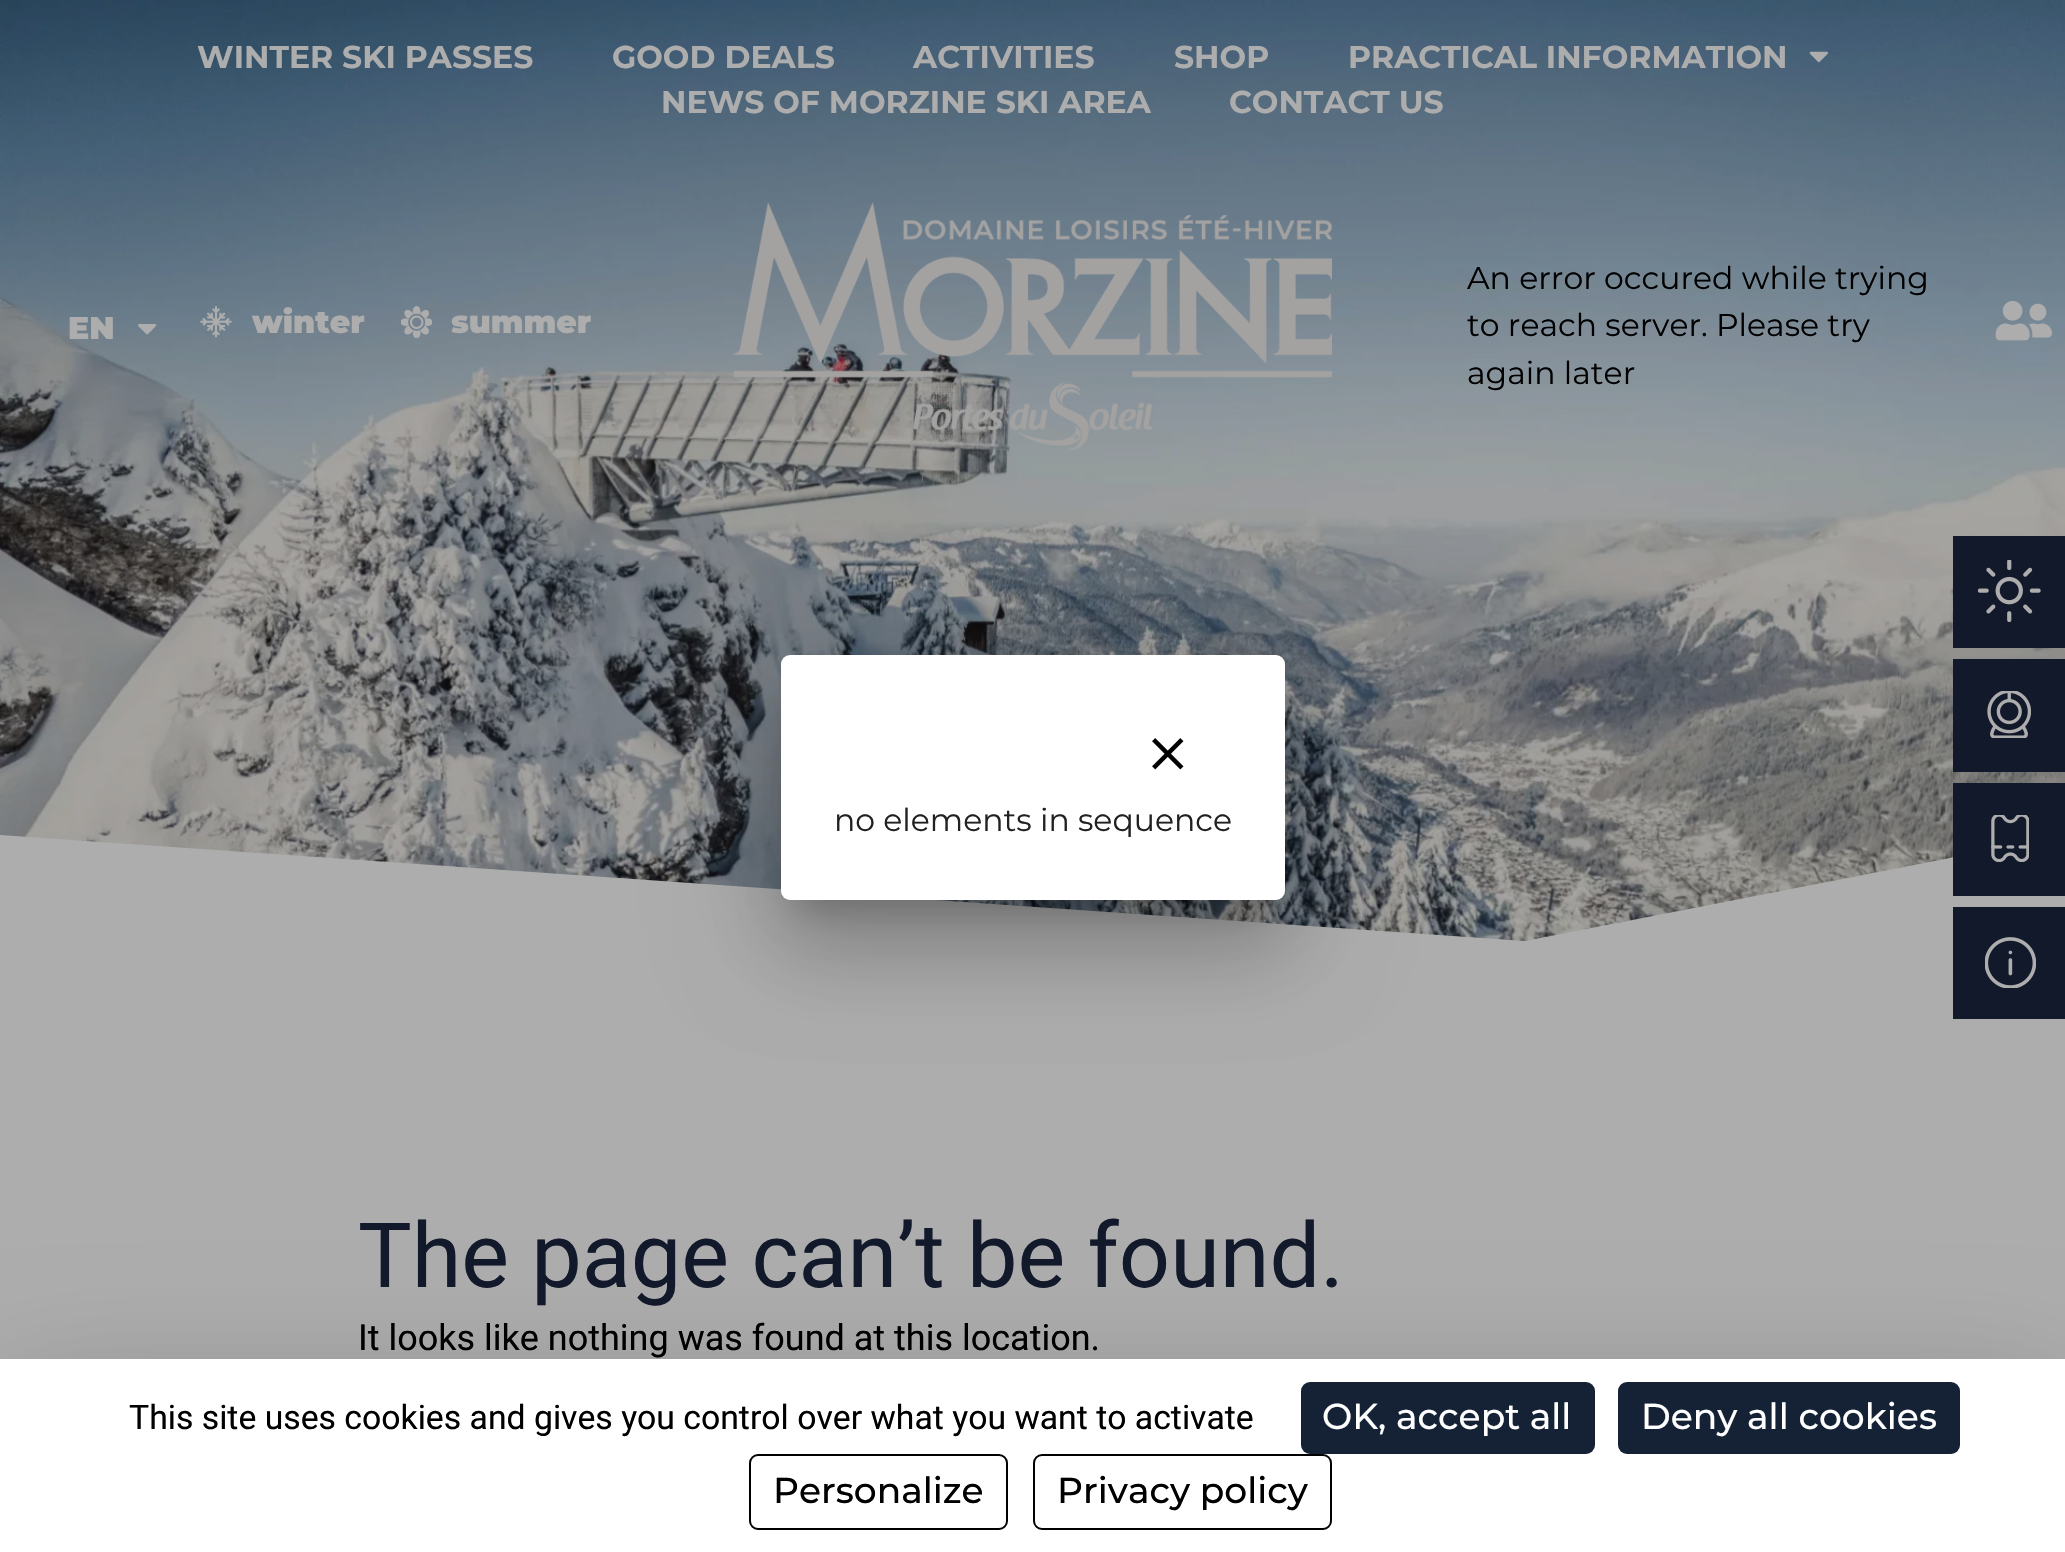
#include "include/core/SkBlurTypes.h"
#include "include/core/SkCanvas.h"
#include "include/core/SkData.h"
#include "include/core/SkFont.h"
#include "include/core/SkFontMgr.h"
#include "include/core/SkImage.h"
#include "include/core/SkMaskFilter.h"
#include "include/core/SkPaint.h"
#include "include/core/SkPathBuilder.h"
#include "include/core/SkTextBlob.h"
#include "include/effects/SkDashPathEffect.h"
#include "include/effects/SkGradientShader.h"
#include "include/utils/SkParsePath.h"

extern sk_sp<SkFontMgr> fontMgr;

static SkFont font(const char* family, int weight, float size, bool italic = false) {
    SkFontStyle style(weight, SkFontStyle::kNormal_Width,
        italic ? SkFontStyle::kItalic_Slant : SkFontStyle::kUpright_Slant);
    SkFont result(fontMgr->matchFamilyStyle(family, style), size);
    result.setSubpixel(true);
    return result;
}

static void drawLabel(SkCanvas* canvas, const char* s, float x, float y, const SkFont& font, SkColor color) {
    SkPaint ink(SkColor4f::FromColor(color));
    ink.setAntiAlias(true);
    canvas->drawString(s, x, y, font, ink);
}

static void fillRect(SkCanvas* canvas, float x, float y, float w, float h, SkColor color) {
    SkPaint ink(SkColor4f::FromColor(color));
    ink.setAntiAlias(true);
    canvas->drawRect(SkRect::MakeXYWH(x, y, w, h), ink);
}

static void fillRRect(SkCanvas* canvas, float x, float y, float w, float h, float radius, SkColor color) {
    SkPaint ink(SkColor4f::FromColor(color));
    ink.setAntiAlias(true);
    canvas->drawRoundRect(SkRect::MakeXYWH(x, y, w, h), radius, radius, ink);
}

static void drawPhoto(SkCanvas* canvas, const char* path, float x, float y, float w, float h) {
    auto image = SkImages::DeferredFromEncodedData(SkData::MakeFromFileName(path));
    canvas->drawImageRect(image, SkRect::MakeXYWH(x, y, w, h), SkSamplingOptions());
}

static SkPath parsePath(const char* data, bool evenOdd = false) {
    SkPath result = *SkParsePath::FromSVGString(data);
    if (evenOdd) result.setFillType(SkPathFillType::kEvenOdd);
    return result;
}

void draw(SkCanvas* canvas) {
    SkPaint paint;
    paint.setAntiAlias(true);
    canvas->clear(0xFFADADAD);
    drawPhoto(canvas, "assets/img1.png", 0, 0, 2065, 941);
    SkFont font1 = font("Montserrat", 700, 31.5f);
    drawLabel(canvas, "WINTER SKI PASSES", 197, 68, font1, 0xFFADADAD);
    drawLabel(canvas, "GOOD DEALS", 612, 68, font1, 0xFFADADAD);
    drawLabel(canvas, "ACTIVITIES", 913, 68, font1, 0xFFADADAD);
    drawLabel(canvas, "SHOP", 1174, 68, font1, 0xFFADADAD);
    drawLabel(canvas, "PRACTICAL INFORMATION", 1348, 68, font1, 0xFFADADAD);
    drawPhoto(canvas, "assets/img2.png", 1809, 51, 19, 12);
    drawLabel(canvas, "NEWS OF MORZINE SKI AREA", 661, 113, font1, 0xFFADADAD);
    drawLabel(canvas, "CONTACT US", 1229, 113, font1, 0xFFADADAD);
    SkFont font2 = font("Montserrat", 900, 31.5f);
    drawLabel(canvas, "EN", 68, 339, font2, 0xFFADADAD);
    drawPhoto(canvas, "assets/img3.png", 138, 324, 19, 11);
    drawPhoto(canvas, "assets/img4.png", 200, 306, 32, 32);
    drawLabel(canvas, "winter", 252, 333, font2, 0xFFADADAD);
    drawPhoto(canvas, "assets/img5.png", 401, 306, 31, 32);
    drawLabel(canvas, "summer", 451, 333, font2, 0xFFADADAD);
    drawPhoto(canvas, "assets/img6.png", 733, 202, 599, 248);
    SkFont font3 = font("Montserrat", 400, 31.5f);
    drawLabel(canvas, "An error occured while trying", 1467, 289, font3, 0xFF000000);
    drawLabel(canvas, "to reach server. Please try", 1467, 336, font3, 0xFF000000);
    drawLabel(canvas, "again later", 1467, 384, font3, 0xFF000000);
    drawPhoto(canvas, "assets/img7.png", 1995, 301, 57, 40);
    paint.setColor(0xFFADADAD);
    canvas->drawPath(parsePath("M1525 941L-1 835V947H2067V835Z"), paint);
    fillRect(canvas, 1953, 536, 112, 112, 0xFF12192B);
    drawPhoto(canvas, "assets/img8.png", 1978, 560, 63, 62);
    fillRect(canvas, 1953, 659, 112, 113, 0xFF12192B);
    drawPhoto(canvas, "assets/img9.png", 1987, 691, 44, 47);
    fillRect(canvas, 1953, 783, 112, 113, 0xFF12192B);
    drawPhoto(canvas, "assets/img10.png", 1991, 815, 38, 47);
    fillRect(canvas, 1953, 907, 112, 112, 0xFF12192B);
    drawPhoto(canvas, "assets/img11.png", 1985, 937, 51, 51);
    paint.setColor(0x1F000000);
    paint.setMaskFilter(SkMaskFilter::MakeBlur(kNormal_SkBlurStyle, 52));
    canvas->drawRoundRect(SkRect::MakeXYWH(763, 657, 540, 281), 27, 27, paint);
    paint.setMaskFilter(nullptr);
    paint.setColor(0x24000000);
    paint.setMaskFilter(SkMaskFilter::MakeBlur(kNormal_SkBlurStyle, 43));
    canvas->drawRoundRect(SkRect::MakeXYWH(774, 702, 518, 259), 16, 16, paint);
    paint.setMaskFilter(nullptr);
    paint.setColor(0x33000000);
    paint.setMaskFilter(SkMaskFilter::MakeBlur(kNormal_SkBlurStyle, 17));
    canvas->drawRect(SkRect::MakeXYWH(797, 695, 472, 214), paint);
    paint.setMaskFilter(nullptr);
    fillRRect(canvas, 781, 655, 504, 245, 9, 0xFFFFFFFF);
    drawPhoto(canvas, "assets/img12.png", 1152, 738, 32, 32);
    drawLabel(canvas, "no elements in sequence", 834, 831, font3, 0xFF212121);
    SkFont font4 = font("Roboto", 400, 90);
    drawLabel(canvas, "The page can’t be found.", 358, 1287, font4, 0xFF12192B);
    SkFont font5 = font("Roboto", 400, 36);
    drawLabel(canvas, "It looks like nothing was found at this location.", 358, 1350, font5, 0xFF000000);
    paint.setColor(0x40000000);
    paint.setMaskFilter(SkMaskFilter::MakeBlur(kNormal_SkBlurStyle, 67.5f));
    canvas->drawRect(SkRect::MakeXYWH(0, 1404, 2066, 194), paint);
    paint.setMaskFilter(nullptr);
    fillRect(canvas, 0, 1359, 2065, 193, 0xFFFFFFFF);
    SkFont font6 = font("Roboto", 400, 33.75f);
    drawLabel(canvas, "This site uses cookies and gives you control over what you want to activate", 129, 1429, font6, 0xFF000000);
    fillRRect(canvas, 1301, 1382, 294, 72, 9, 0xFF152236);
    SkFont font7 = font("Montserrat", 500, 36);
    drawLabel(canvas, "OK, accept all", 1322, 1429, font7, 0xFFFFFFFF);
    fillRRect(canvas, 1618, 1382, 342, 72, 9, 0xFF152236);
    drawLabel(canvas, "Deny all cookies", 1641, 1429, font7, 0xFFFFFFFF);
    paint.setStroke(true);
    paint.setStrokeWidth(2);
    paint.setColor(0xFF000000);
    canvas->drawRoundRect(SkRect::MakeXYWH(750, 1455, 257, 74), 8, 8, paint);
    drawLabel(canvas, "Personalize", 773, 1503, font7, 0xFF000000);
    canvas->drawRoundRect(SkRect::MakeXYWH(1034, 1455, 297, 74), 8, 8, paint);
    drawLabel(canvas, "Privacy policy", 1057, 1503, font7, 0xFF000000);
}
